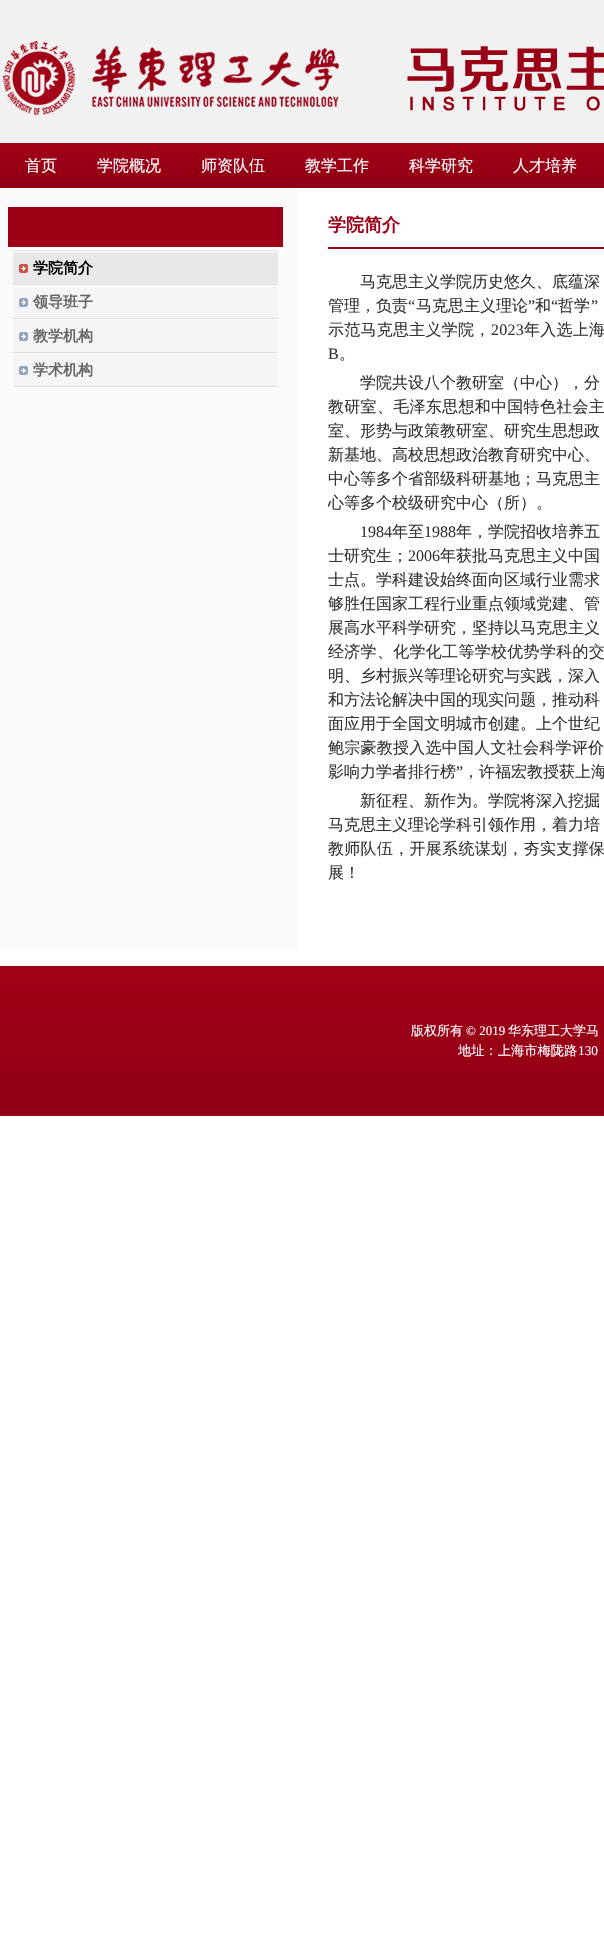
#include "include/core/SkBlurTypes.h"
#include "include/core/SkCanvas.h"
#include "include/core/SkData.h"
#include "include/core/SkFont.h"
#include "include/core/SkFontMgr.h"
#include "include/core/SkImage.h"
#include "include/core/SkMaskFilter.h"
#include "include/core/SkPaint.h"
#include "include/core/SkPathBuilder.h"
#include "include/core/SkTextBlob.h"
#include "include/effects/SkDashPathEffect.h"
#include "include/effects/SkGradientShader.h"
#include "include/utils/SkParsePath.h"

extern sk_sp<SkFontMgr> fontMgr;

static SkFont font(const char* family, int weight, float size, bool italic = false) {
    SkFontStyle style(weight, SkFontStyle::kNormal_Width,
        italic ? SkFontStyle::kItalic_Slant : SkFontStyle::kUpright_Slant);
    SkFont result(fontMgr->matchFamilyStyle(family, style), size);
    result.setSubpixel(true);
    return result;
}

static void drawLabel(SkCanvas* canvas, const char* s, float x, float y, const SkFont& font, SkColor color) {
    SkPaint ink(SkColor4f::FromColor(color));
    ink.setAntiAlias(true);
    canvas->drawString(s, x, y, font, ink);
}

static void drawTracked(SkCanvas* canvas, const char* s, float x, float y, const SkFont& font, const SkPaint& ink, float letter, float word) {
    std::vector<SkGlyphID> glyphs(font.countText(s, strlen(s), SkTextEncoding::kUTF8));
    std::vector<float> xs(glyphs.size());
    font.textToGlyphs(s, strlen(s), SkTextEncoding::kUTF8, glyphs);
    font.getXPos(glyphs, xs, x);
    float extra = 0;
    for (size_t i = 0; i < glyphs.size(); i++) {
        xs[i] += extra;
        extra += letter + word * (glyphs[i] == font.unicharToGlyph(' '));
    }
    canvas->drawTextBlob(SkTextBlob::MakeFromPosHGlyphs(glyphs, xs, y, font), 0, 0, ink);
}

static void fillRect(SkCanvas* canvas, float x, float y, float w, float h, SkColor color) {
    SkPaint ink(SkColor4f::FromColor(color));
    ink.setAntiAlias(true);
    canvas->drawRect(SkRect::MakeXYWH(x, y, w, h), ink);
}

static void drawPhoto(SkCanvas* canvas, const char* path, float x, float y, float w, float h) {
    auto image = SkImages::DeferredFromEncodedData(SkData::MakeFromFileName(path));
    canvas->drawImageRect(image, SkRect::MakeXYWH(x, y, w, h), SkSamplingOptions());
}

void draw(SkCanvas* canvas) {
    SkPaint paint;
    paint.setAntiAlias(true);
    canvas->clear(0xFFFFFFFF);
    drawPhoto(canvas, "assets/img1.png", 0, 0, 604, 188);
    drawPhoto(canvas, "assets/img2.png", 1, 41, 603, 74);
    SkFont font1 = font("WenQuanYi Zen Hei", 500, 16);
    drawLabel(canvas, "首页", 25, 171, font1, 0xFFFFFFFF);
    drawLabel(canvas, "学院概况", 97, 171, font1, 0xFFFFFFFF);
    drawLabel(canvas, "师资队伍", 201, 171, font1, 0xFFFFFFFF);
    drawLabel(canvas, "教学工作", 305, 171, font1, 0xFFFFFFFF);
    drawLabel(canvas, "科学研究", 409, 171, font1, 0xFFFFFFFF);
    drawLabel(canvas, "人才培养", 513, 171, font1, 0xFFFFFFFF);
    fillRect(canvas, 0, 190, 298, 760, 0xFFFBFAFA);
    fillRect(canvas, 8, 207, 275, 40, 0xFF9D0016);
    fillRect(canvas, 8, 247, 275, 3, 0xFFFFFFFF);
    fillRect(canvas, 13, 250, 265, 1, 0xFFDDDDDD);
    fillRect(canvas, 13, 387, 265, 1, 0xFFFFFFFF);
    fillRect(canvas, 13, 252, 265, 32, 0xFFE8E8E8);
    drawPhoto(canvas, "assets/img3.png", 19, 264, 9, 9);
    fillRect(canvas, 13, 251, 265, 1, 0xFFFFFFFF);
    fillRect(canvas, 13, 284, 265, 1, 0xFFDDDDDD);
    SkFont font2 = font("WenQuanYi Zen Hei", 700, 15);
    drawLabel(canvas, "学院简介", 33, 273, font2, 0xFF000000);
    fillRect(canvas, 13, 286, 265, 32, 0xFFF5F5F5);
    drawPhoto(canvas, "assets/img4.png", 19, 298, 9, 9);
    fillRect(canvas, 13, 285, 265, 1, 0xFFFFFFFF);
    fillRect(canvas, 13, 318, 265, 1, 0xFFDDDDDD);
    drawLabel(canvas, "领导班子", 33, 307, font2, 0xFF666666);
    fillRect(canvas, 13, 320, 265, 32, 0xFFF5F5F5);
    drawPhoto(canvas, "assets/img4.png", 19, 332, 9, 9);
    fillRect(canvas, 13, 319, 265, 1, 0xFFFFFFFF);
    fillRect(canvas, 13, 352, 265, 1, 0xFFDDDDDD);
    drawLabel(canvas, "教学机构", 33, 341, font2, 0xFF666666);
    fillRect(canvas, 13, 354, 265, 32, 0xFFF5F5F5);
    drawPhoto(canvas, "assets/img4.png", 19, 366, 9, 9);
    fillRect(canvas, 13, 353, 265, 1, 0xFFFFFFFF);
    fillRect(canvas, 13, 386, 265, 1, 0xFFDDDDDD);
    drawLabel(canvas, "学术机构", 33, 375, font2, 0xFF666666);
    SkFont font3 = font("WenQuanYi Zen Hei", 700, 18);
    drawLabel(canvas, "学院简介", 328, 231, font3, 0xFF9D0016);
    fillRect(canvas, 328, 247, 276, 2, 0xFF9D0016);
    drawLabel(canvas, "马克思主义学院历史悠久、底蕴深", 360, 287, font1, 0xFF333333);
    drawLabel(canvas, "管理，负责", 328, 311, font1, 0xFF333333);
    SkFont font4 = font("Liberation Serif", 400, 16);
    drawLabel(canvas, "“", 408, 311, font4, 0xFF333333);
    drawLabel(canvas, "马克思主义理论", 416, 311, font1, 0xFF333333);
    drawLabel(canvas, "”", 528, 311, font4, 0xFF333333);
    drawLabel(canvas, "和", 535, 311, font1, 0xFF333333);
    drawLabel(canvas, "“", 551, 311, font4, 0xFF333333);
    drawLabel(canvas, "哲学", 558, 311, font1, 0xFF333333);
    drawLabel(canvas, "”", 591, 311, font4, 0xFF333333);
    paint.setColor(0xFF333333);
    drawTracked(canvas, "示范马克思主义学院，", 328, 335, font1, paint, 0.25f, 0);
    drawTracked(canvas, "2023", 491, 335, font4, paint, 0.25f, 0);
    drawTracked(canvas, "年入选上海", 524, 335, font1, paint, 0.25f, 0);
    drawLabel(canvas, "B", 328, 359, font4, 0xFF333333);
    drawLabel(canvas, "。", 339, 359, font1, 0xFF333333);
    drawLabel(canvas, "学院共设八个教研室（中心），分", 360, 388, font1, 0xFF333333);
    drawTracked(canvas, "教研室、毛泽东思想和中国特色社会主", 328, 412, font1, paint, 0.3f, 0);
    drawLabel(canvas, "室、形势与政策教研室、研究生思想政", 328, 436, font1, 0xFF333333);
    drawLabel(canvas, "新基地、高校思想政治教育研究中心、", 328, 460, font1, 0xFF333333);
    drawLabel(canvas, "中心等多个省部级科研基地；马克思主", 328, 484, font1, 0xFF333333);
    drawLabel(canvas, "心等多个校级研究中心（所）。", 328, 508, font1, 0xFF333333);
    drawLabel(canvas, "1984", 360, 537, font4, 0xFF333333);
    drawLabel(canvas, "年至", 392, 537, font1, 0xFF333333);
    drawLabel(canvas, "1988", 424, 537, font4, 0xFF333333);
    drawLabel(canvas, "年，学院招收培养五", 456, 537, font1, 0xFF333333);
    drawLabel(canvas, "士研究生；", 328, 561, font1, 0xFF333333);
    drawLabel(canvas, "2006", 408, 561, font4, 0xFF333333);
    drawLabel(canvas, "年获批马克思主义中国", 440, 561, font1, 0xFF333333);
    drawLabel(canvas, "士点。学科建设始终面向区域行业需求", 328, 585, font1, 0xFF333333);
    drawLabel(canvas, "够胜任国家工程行业重点领域党建、管", 328, 609, font1, 0xFF333333);
    drawLabel(canvas, "展高水平科学研究，坚持以马克思主义", 328, 633, font1, 0xFF333333);
    drawTracked(canvas, "经济学、化学化工等学校优势学科的交", 328, 657, font1, paint, 0.3f, 0);
    drawLabel(canvas, "明、乡村振兴等理论研究与实践，深入", 328, 681, font1, 0xFF333333);
    drawLabel(canvas, "和方法论解决中国的现实问题，推动科", 328, 705, font1, 0xFF333333);
    drawLabel(canvas, "面应用于全国文明城市创建。上个世纪", 328, 729, font1, 0xFF333333);
    drawTracked(canvas, "鲍宗豪教授入选中国人文社会科学评价", 328, 753, font1, paint, 0.25f, 0);
    drawLabel(canvas, "影响力学者排行榜", 328, 777, font1, 0xFF333333);
    drawLabel(canvas, "”", 456, 777, font4, 0xFF333333);
    drawLabel(canvas, "，许福宏教授获上海", 463, 777, font1, 0xFF333333);
    drawLabel(canvas, "新征程、新作为。学院将深入挖掘", 360, 806, font1, 0xFF333333);
    drawLabel(canvas, "马克思主义理论学科引领作用，着力培", 328, 830, font1, 0xFF333333);
    drawTracked(canvas, "教师队伍，开展系统谋划，夯实支撑保", 328, 854, font1, paint, 0.3f, 0);
    drawLabel(canvas, "展！", 328, 878, font1, 0xFF333333);
    drawPhoto(canvas, "assets/img5.png", 0, 966, 604, 150);
    SkFont font5 = font("WenQuanYi Zen Hei", 500, 13);
    drawLabel(canvas, "版权所有", 411, 1035, font5, 0xFFFFFFFF);
    SkFont font6 = font("Liberation Serif", 400, 13);
    drawLabel(canvas, "© 2019", 466, 1035, font6, 0xFFFFFFFF);
    drawLabel(canvas, "华东理工大学马", 508, 1035, font5, 0xFFFFFFFF);
    SkFont font7 = font("WenQuanYi Zen Hei", 500, 13.25f);
    drawLabel(canvas, "地址：上海市梅陇路", 458, 1055, font7, 0xFFFFFFFF);
    SkFont font8 = font("Liberation Serif", 400, 13.25f);
    drawLabel(canvas, "130", 578, 1055, font8, 0xFFFFFFFF);
}
